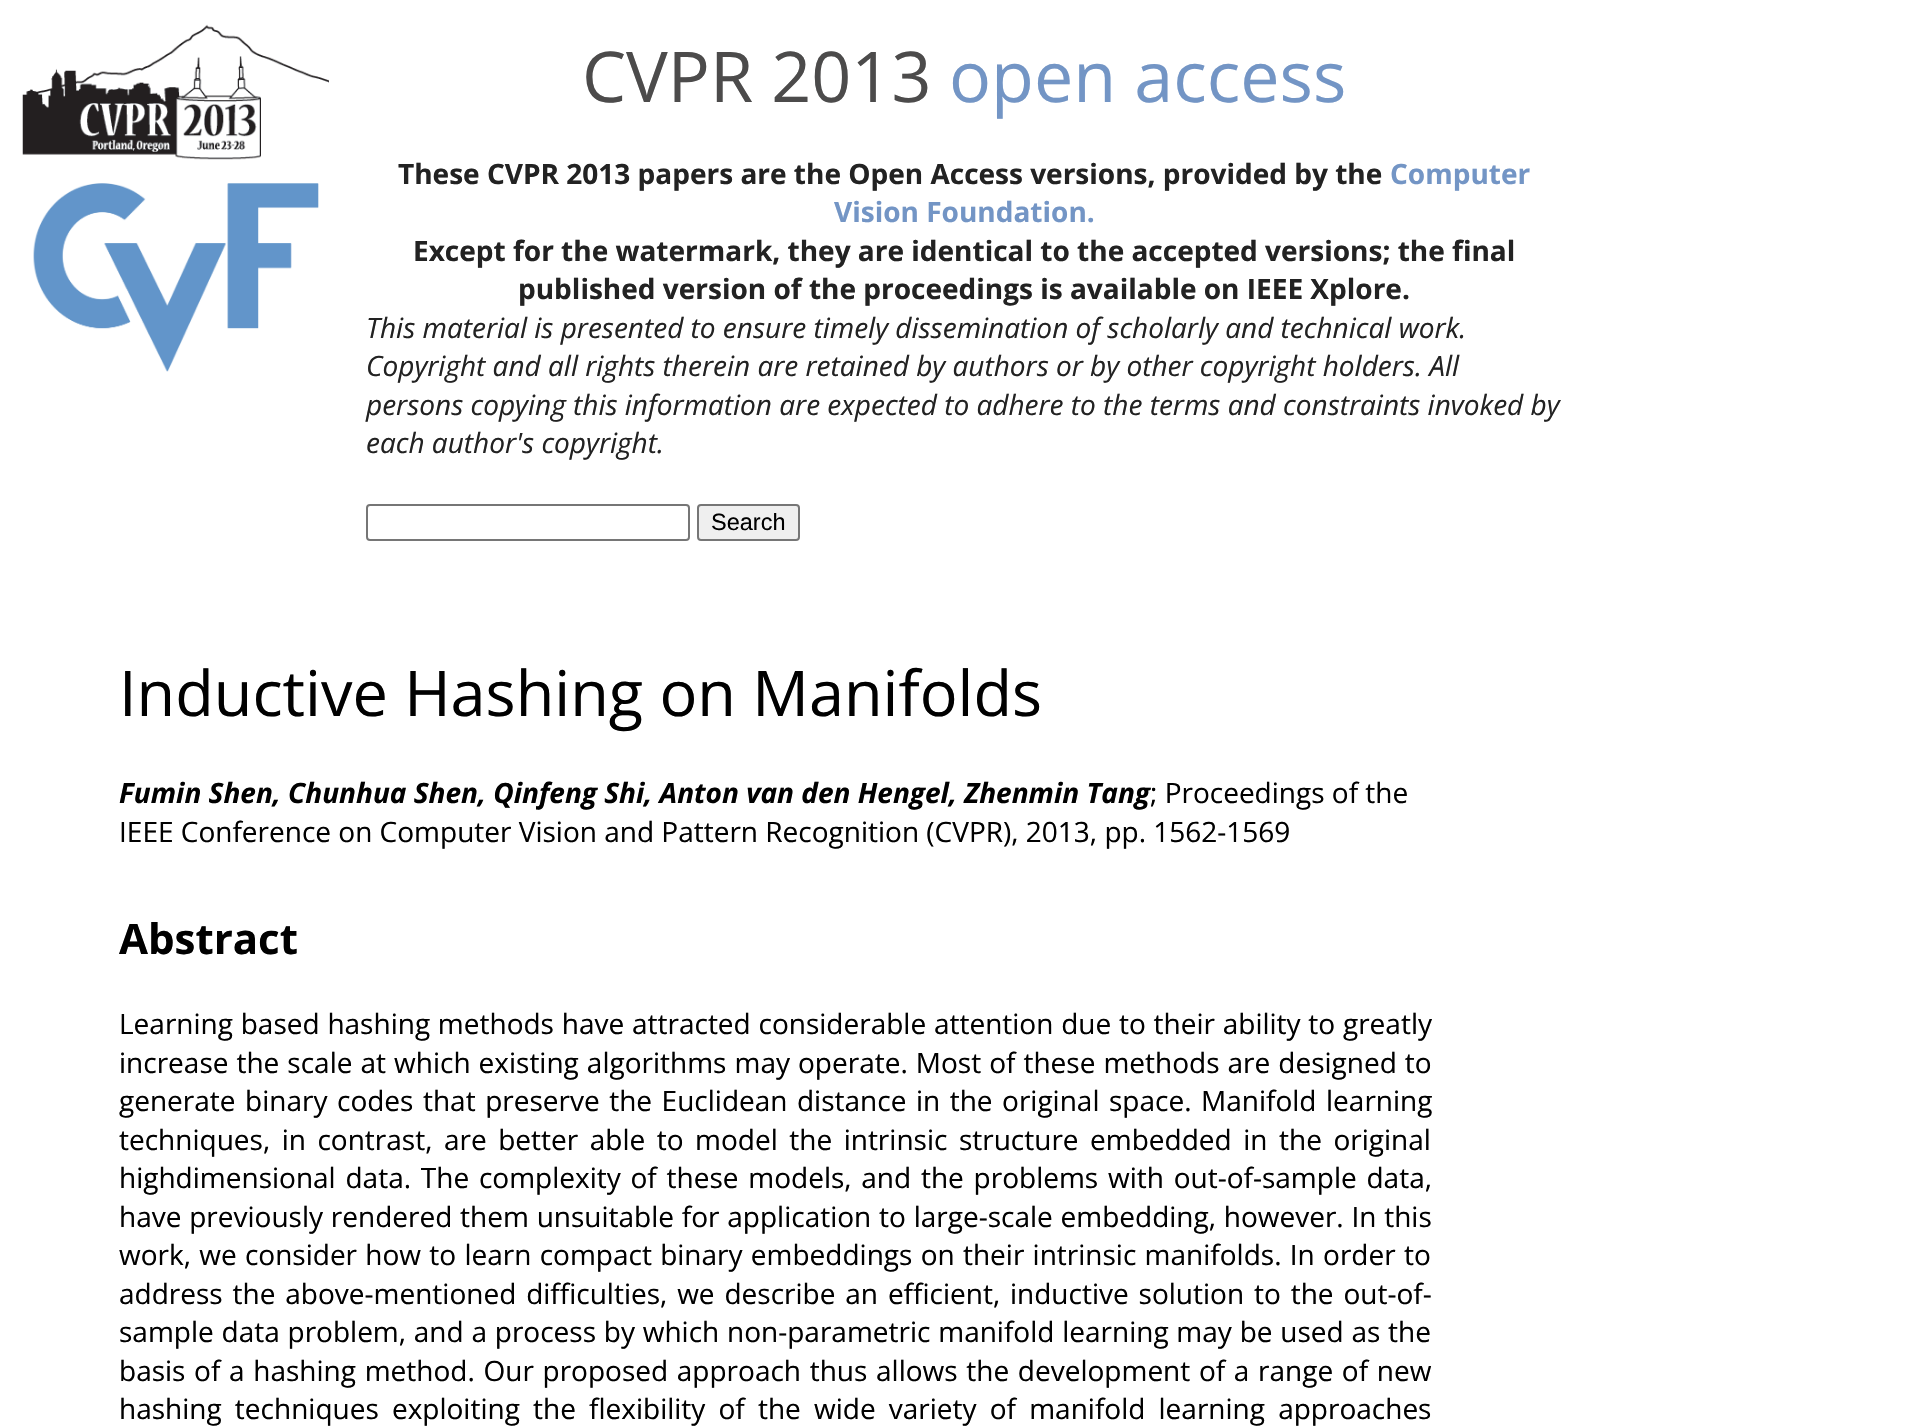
#include "include/core/SkBlurTypes.h"
#include "include/core/SkCanvas.h"
#include "include/core/SkData.h"
#include "include/core/SkFont.h"
#include "include/core/SkFontMgr.h"
#include "include/core/SkImage.h"
#include "include/core/SkMaskFilter.h"
#include "include/core/SkPaint.h"
#include "include/core/SkPathBuilder.h"
#include "include/core/SkTextBlob.h"
#include "include/effects/SkDashPathEffect.h"
#include "include/effects/SkGradientShader.h"
#include "include/utils/SkParsePath.h"

extern sk_sp<SkFontMgr> fontMgr;

static SkFont font(const char* family, int weight, float size, bool italic = false) {
    SkFontStyle style(weight, SkFontStyle::kNormal_Width,
        italic ? SkFontStyle::kItalic_Slant : SkFontStyle::kUpright_Slant);
    SkFont result(fontMgr->matchFamilyStyle(family, style), size);
    result.setSubpixel(true);
    return result;
}

static void drawLabel(SkCanvas* canvas, const char* s, float x, float y, const SkFont& font, SkColor color) {
    SkPaint ink(SkColor4f::FromColor(color));
    ink.setAntiAlias(true);
    canvas->drawString(s, x, y, font, ink);
}

static void drawTracked(SkCanvas* canvas, const char* s, float x, float y, const SkFont& font, const SkPaint& ink, float letter, float word) {
    std::vector<SkGlyphID> glyphs(font.countText(s, strlen(s), SkTextEncoding::kUTF8));
    std::vector<float> xs(glyphs.size());
    font.textToGlyphs(s, strlen(s), SkTextEncoding::kUTF8, glyphs);
    font.getXPos(glyphs, xs, x);
    float extra = 0;
    for (size_t i = 0; i < glyphs.size(); i++) {
        xs[i] += extra;
        extra += letter + word * (glyphs[i] == font.unicharToGlyph(' '));
    }
    canvas->drawTextBlob(SkTextBlob::MakeFromPosHGlyphs(glyphs, xs, y, font), 0, 0, ink);
}

static void drawPhoto(SkCanvas* canvas, const char* path, float x, float y, float w, float h) {
    auto image = SkImages::DeferredFromEncodedData(SkData::MakeFromFileName(path));
    canvas->drawImageRect(image, SkRect::MakeXYWH(x, y, w, h), SkSamplingOptions());
}

void draw(SkCanvas* canvas) {
    SkPaint paint;
    paint.setAntiAlias(true);
    canvas->clear(0xFFFFFFFF);
    drawPhoto(canvas, "assets/img1.png", 22, 24, 307, 136);
    drawPhoto(canvas, "assets/img2.png", 33, 183, 286, 189);
    SkFont font1 = font("Open Sans", 400, 70);
    drawLabel(canvas, "CVPR 2013", 582, 102, font1, 0xFF4C4B4B);
    drawLabel(canvas, "open access", 949, 102, font1, 0xFF7395C5);
    SkFont font2 = font("Open Sans", 700, 28);
    drawLabel(canvas, "These CVPR 2013 papers are the Open Access versions, provided by the", 398, 184, font2, 0xFF222222);
    drawLabel(canvas, "Computer", 1390, 184, font2, 0xFF7395C5);
    drawLabel(canvas, "Vision Foundation.", 834, 222, font2, 0xFF7395C5);
    drawLabel(canvas, "Except for the watermark, they are identical to the accepted versions; the final", 413, 261, font2, 0xFF222222);
    drawLabel(canvas, "published version of the proceedings is available on IEEE Xplore.", 518, 299, font2, 0xFF222222);
    SkFont font3 = font("Open Sans", 400, 28, true);
    drawLabel(canvas, "This material is presented to ensure timely dissemination of scholarly and technical work.", 366, 338, font3, 0xFF222222);
    drawLabel(canvas, "Copyright and all rights therein are retained by authors or by other copyright holders. All", 366, 376, font3, 0xFF222222);
    drawLabel(canvas, "persons copying this information are expected to adhere to the terms and constraints invoked by", 366, 415, font3, 0xFF222222);
    drawLabel(canvas, "each author's copyright.", 366, 453, font3, 0xFF222222);
    paint.setStroke(true);
    paint.setStrokeWidth(2);
    paint.setColor(0xFF767676);
    canvas->drawRoundRect(SkRect::MakeXYWH(367, 505, 322, 35), 3, 3, paint);
    paint.setStroke(false);
    paint.setColor(0xFFEFEFEF);
    canvas->drawRoundRect(SkRect::MakeXYWH(698, 505, 101, 35), 3, 3, paint);
    paint.setStroke(true);
    paint.setColor(0xFF767676);
    canvas->drawRoundRect(SkRect::MakeXYWH(698, 505, 101, 35), 3, 3, paint);
    SkFont font4 = font("Liberation Sans", 400, 23.5f);
    drawLabel(canvas, "Search", 711, 530, font4, 0xFF000000);
    SkFont font5 = font("Open Sans", 400, 63);
    drawLabel(canvas, "Inductive Hashing on Manifolds", 119, 716, font5, 0xFF000000);
    SkFont font6 = font("Open Sans", 700, 28, true);
    drawLabel(canvas, "Fumin Shen, Chunhua Shen, Qinfeng Shi, Anton van den Hengel, Zhenmin Tang", 119, 803, font6, 0xFF000000);
    SkFont font7 = font("Open Sans", 400, 28);
    drawLabel(canvas, "; Proceedings of the", 1150, 803, font7, 0xFF000000);
    drawLabel(canvas, "IEEE Conference on Computer Vision and Pattern Recognition (CVPR), 2013, pp. 1562-1569", 119, 842, font7, 0xFF000000);
    SkFont font8 = font("Open Sans", 700, 42);
    drawLabel(canvas, "Abstract", 119, 954, font8, 0xFF000000);
    paint.setStroke(false);
    paint.setColor(0xFF000000);
    drawTracked(canvas, "Learning based hashing methods have attracted considerable attention due to their ability to greatly", 119, 1034, font7, paint, 0, 0.5f);
    drawTracked(canvas, "increase the scale at which existing algorithms may operate. Most of these methods are designed to", 119, 1073, font7, paint, 0, 0.75f);
    drawTracked(canvas, "generate binary codes that preserve the Euclidean distance in the original space. Manifold learning", 119, 1111, font7, paint, 0, 2.25f);
    drawTracked(canvas, "techniques, in contrast, are better able to model the intrinsic structure embedded in the original", 119, 1150, font7, paint, 0, 4.25f);
    drawTracked(canvas, "highdimensional data. The complexity of these models, and the problems with out-of-sample data,", 119, 1188, font7, paint, 0, 2.5f);
    drawTracked(canvas, "have previously rendered them unsuitable for application to large-scale embedding, however. In this", 119, 1227, font7, paint, 0, 0.5f);
    drawTracked(canvas, "work, we consider how to learn compact binary embeddings on their intrinsic manifolds. In order to", 119, 1265, font7, paint, 0, 1);
    drawTracked(canvas, "address the above-mentioned difficulties, we describe an efficient, inductive solution to the out-of-", 119, 1304, font7, paint, 0, 2.6f);
    drawTracked(canvas, "sample data problem, and a process by which non-parametric manifold learning may be used as the", 119, 1342, font7, paint, 0, 0.5f);
    drawTracked(canvas, "basis of a hashing method. Our proposed approach thus allows the development of a range of new", 119, 1381, font7, paint, 0, 1.4f);
    drawTracked(canvas, "hashing techniques exploiting the flexibility of the wide variety of manifold learning approaches", 119, 1419, font7, paint, 0, 5.9f);
}
